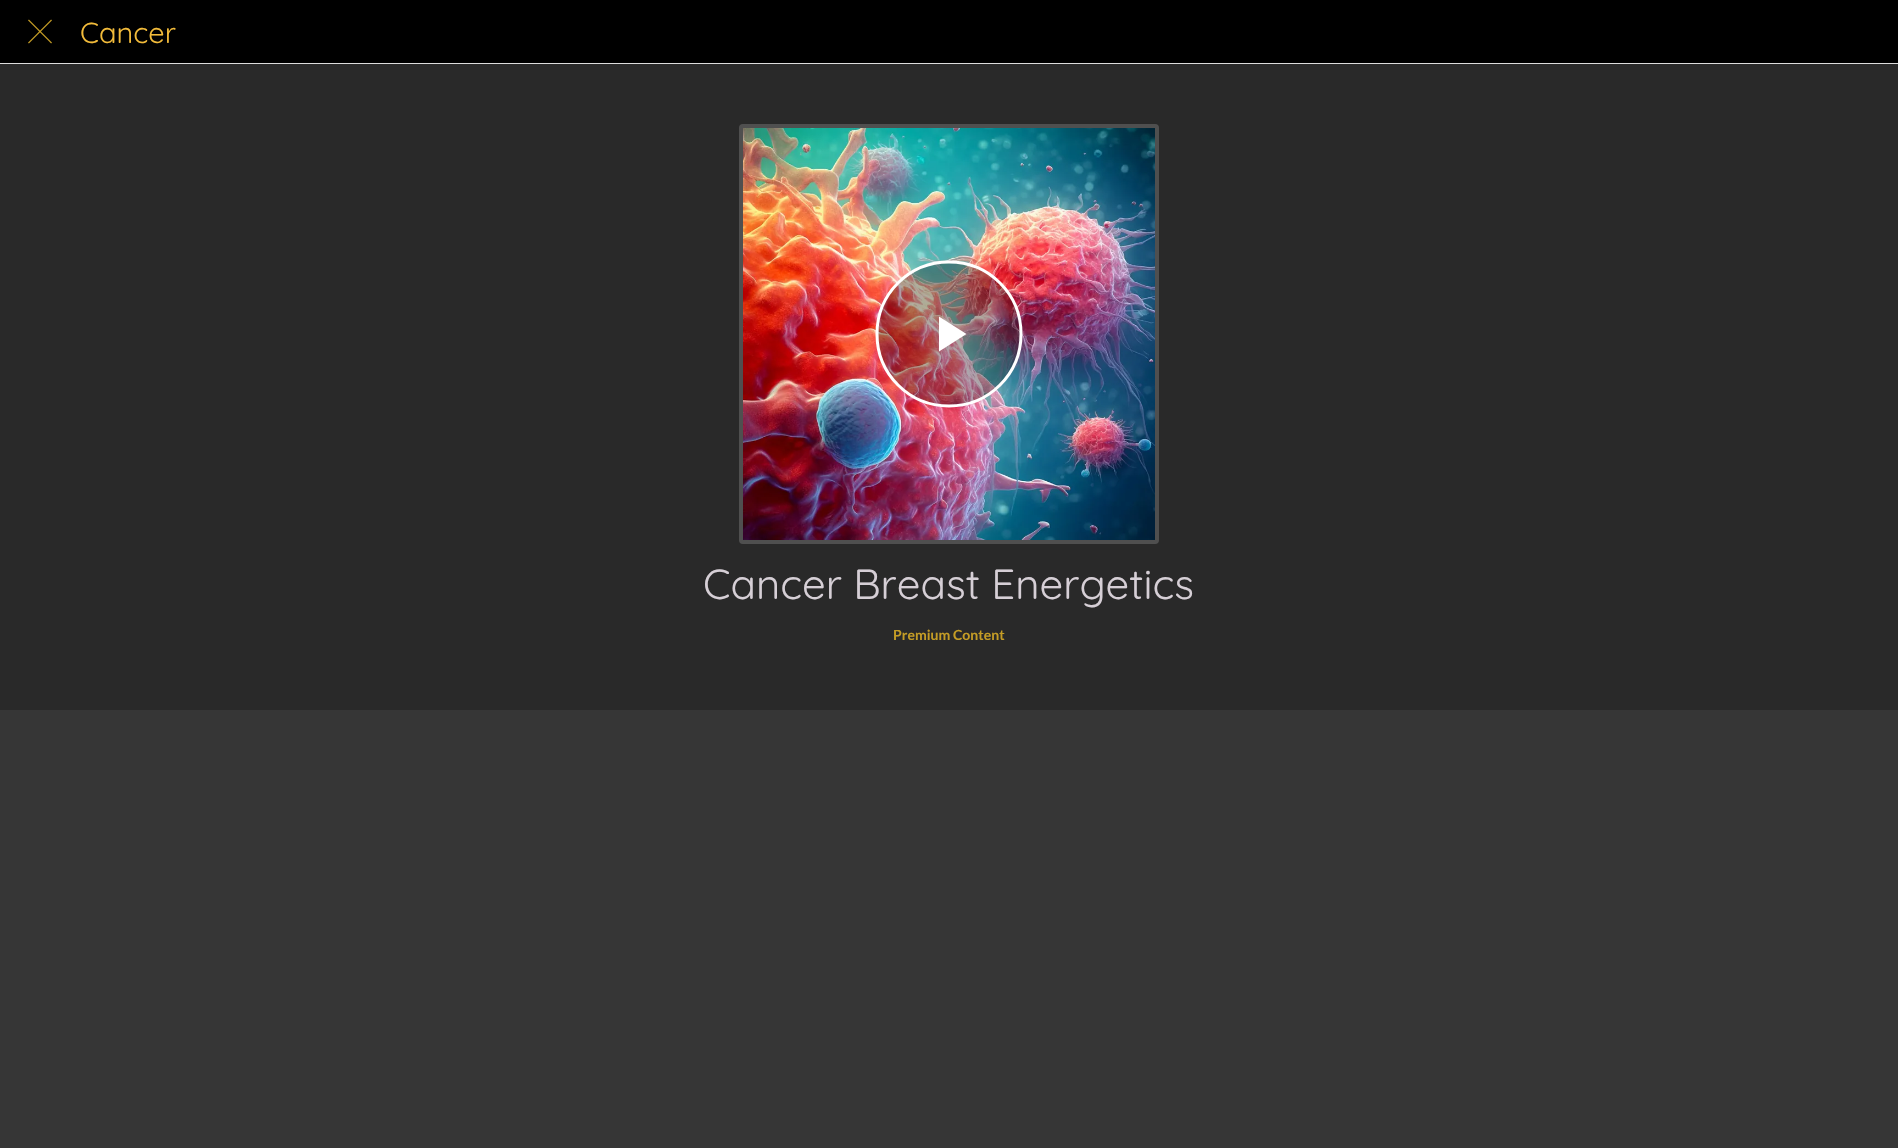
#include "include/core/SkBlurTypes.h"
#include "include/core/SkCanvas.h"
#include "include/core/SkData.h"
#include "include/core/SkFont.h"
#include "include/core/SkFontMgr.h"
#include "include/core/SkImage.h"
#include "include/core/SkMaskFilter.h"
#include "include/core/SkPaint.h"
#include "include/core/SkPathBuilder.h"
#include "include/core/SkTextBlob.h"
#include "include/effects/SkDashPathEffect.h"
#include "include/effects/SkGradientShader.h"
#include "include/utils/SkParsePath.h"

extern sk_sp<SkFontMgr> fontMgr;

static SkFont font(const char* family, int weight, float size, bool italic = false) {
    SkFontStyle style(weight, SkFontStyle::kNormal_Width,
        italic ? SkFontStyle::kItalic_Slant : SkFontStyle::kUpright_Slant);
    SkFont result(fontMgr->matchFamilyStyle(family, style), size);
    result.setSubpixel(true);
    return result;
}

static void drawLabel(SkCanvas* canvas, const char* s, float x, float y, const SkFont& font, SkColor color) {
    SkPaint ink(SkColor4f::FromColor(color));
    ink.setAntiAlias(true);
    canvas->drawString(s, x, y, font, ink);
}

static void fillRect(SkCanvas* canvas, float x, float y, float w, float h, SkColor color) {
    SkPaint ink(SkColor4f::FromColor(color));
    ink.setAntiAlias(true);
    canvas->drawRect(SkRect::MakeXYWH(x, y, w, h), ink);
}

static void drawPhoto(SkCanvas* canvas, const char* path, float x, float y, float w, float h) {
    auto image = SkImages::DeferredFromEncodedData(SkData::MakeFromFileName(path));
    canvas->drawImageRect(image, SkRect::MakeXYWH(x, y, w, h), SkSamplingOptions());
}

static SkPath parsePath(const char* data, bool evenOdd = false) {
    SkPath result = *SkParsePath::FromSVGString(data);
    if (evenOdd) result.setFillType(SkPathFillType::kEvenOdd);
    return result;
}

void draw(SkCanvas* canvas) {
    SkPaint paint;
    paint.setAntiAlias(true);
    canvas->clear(0xFF363636);
    fillRect(canvas, 0, 0, 1898, 63, 0xFF000000);
    fillRect(canvas, 0, 63, 1898, 1, 0xFFDDDDDD);
    drawPhoto(canvas, "assets/img1.png", 28, 19, 24, 25);
    SkFont font1 = font("Quicksand", 300, 29);
    drawLabel(canvas, "Cancer", 80, 43, font1, 0xFFF2BB3A);
    fillRect(canvas, 0, 64, 1898, 646, 0xFF292929);
    drawPhoto(canvas, "assets/img2.png", 743, 128, 412, 412);
    paint.setStroke(true);
    paint.setStrokeWidth(4);
    paint.setColor(0xFF4F4F4F);
    canvas->drawRoundRect(SkRect::MakeXYWH(741, 126, 416, 416), 2, 2, paint);
    paint.setStroke(false);
    paint.setColor(0x4D000000);
    canvas->drawCircle(949, 334, 72, paint);
    paint.setStroke(true);
    paint.setStrokeWidth(3);
    paint.setColor(0xFFFFFFFF);
    canvas->drawPath(parsePath("M949 262C989 262 1021 294 1021 334C1021 374 989 406 949 406C909 406 877 374 877 334C877 294 909 262 949 262"), paint);
    paint.setStroke(false);
    canvas->drawPath(parsePath("M939 316.5V351.5L966.5 334Z"), paint);
    SkFont font2 = font("Quicksand", 300, 42);
    drawLabel(canvas, "Cancer Breast Energetics", 703, 599, font2, 0xFFD6CFD6);
    SkFont font3 = font("Lato", 700, 14);
    drawLabel(canvas, "Premium Content", 893, 640, font3, 0xFFC49C25);
}
